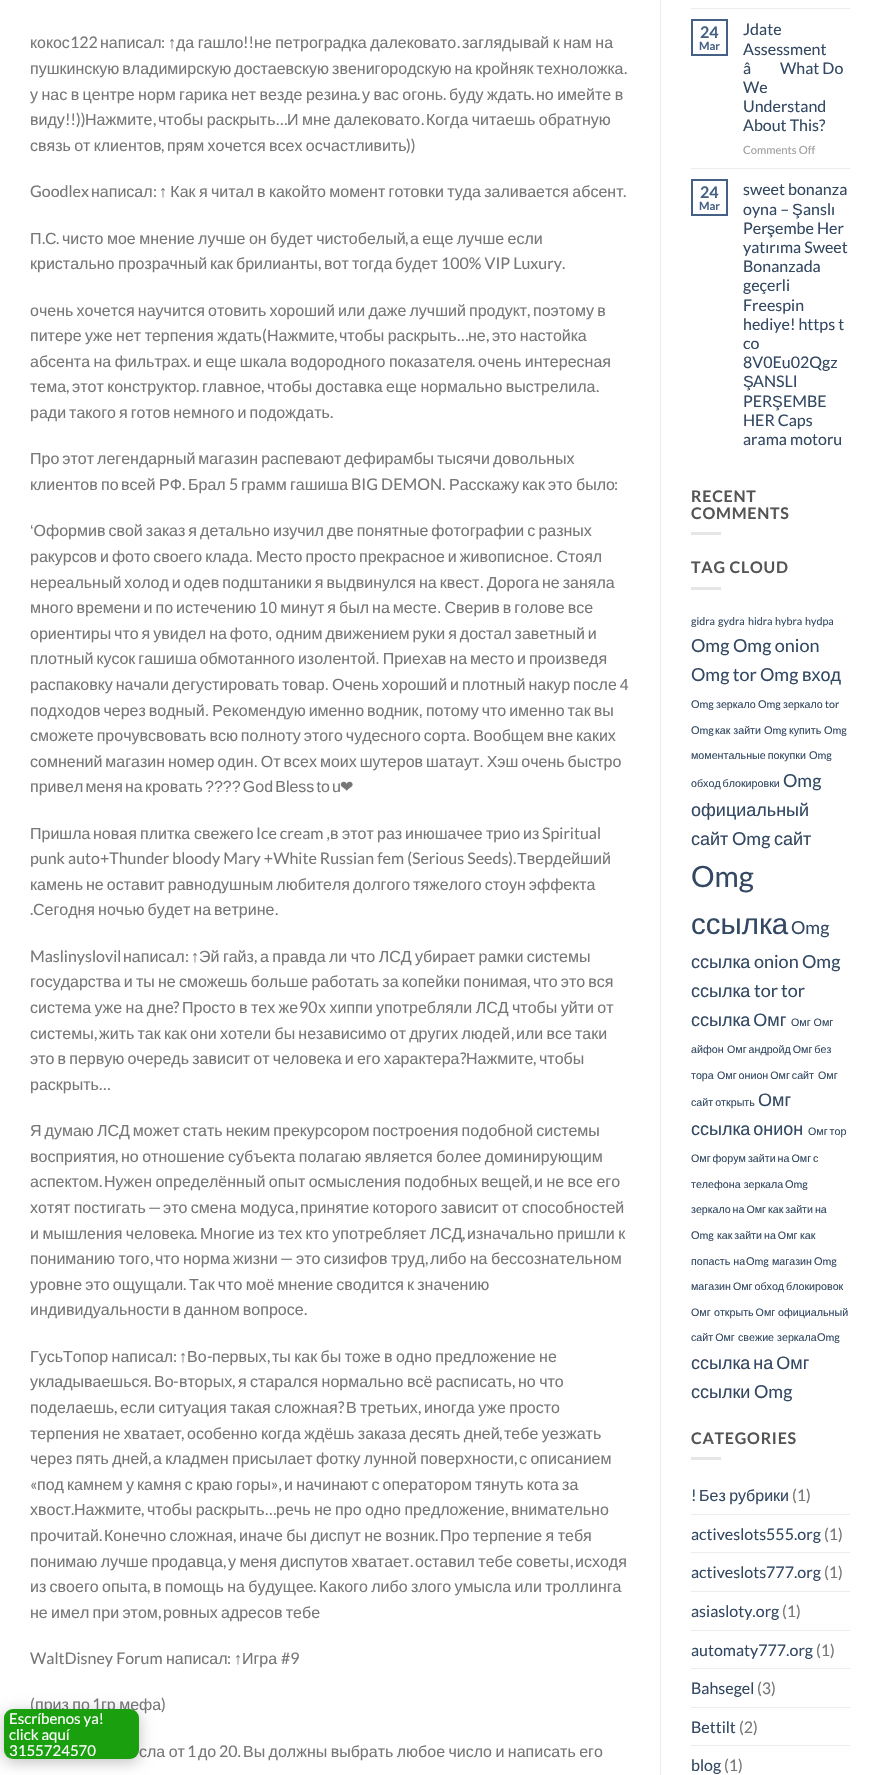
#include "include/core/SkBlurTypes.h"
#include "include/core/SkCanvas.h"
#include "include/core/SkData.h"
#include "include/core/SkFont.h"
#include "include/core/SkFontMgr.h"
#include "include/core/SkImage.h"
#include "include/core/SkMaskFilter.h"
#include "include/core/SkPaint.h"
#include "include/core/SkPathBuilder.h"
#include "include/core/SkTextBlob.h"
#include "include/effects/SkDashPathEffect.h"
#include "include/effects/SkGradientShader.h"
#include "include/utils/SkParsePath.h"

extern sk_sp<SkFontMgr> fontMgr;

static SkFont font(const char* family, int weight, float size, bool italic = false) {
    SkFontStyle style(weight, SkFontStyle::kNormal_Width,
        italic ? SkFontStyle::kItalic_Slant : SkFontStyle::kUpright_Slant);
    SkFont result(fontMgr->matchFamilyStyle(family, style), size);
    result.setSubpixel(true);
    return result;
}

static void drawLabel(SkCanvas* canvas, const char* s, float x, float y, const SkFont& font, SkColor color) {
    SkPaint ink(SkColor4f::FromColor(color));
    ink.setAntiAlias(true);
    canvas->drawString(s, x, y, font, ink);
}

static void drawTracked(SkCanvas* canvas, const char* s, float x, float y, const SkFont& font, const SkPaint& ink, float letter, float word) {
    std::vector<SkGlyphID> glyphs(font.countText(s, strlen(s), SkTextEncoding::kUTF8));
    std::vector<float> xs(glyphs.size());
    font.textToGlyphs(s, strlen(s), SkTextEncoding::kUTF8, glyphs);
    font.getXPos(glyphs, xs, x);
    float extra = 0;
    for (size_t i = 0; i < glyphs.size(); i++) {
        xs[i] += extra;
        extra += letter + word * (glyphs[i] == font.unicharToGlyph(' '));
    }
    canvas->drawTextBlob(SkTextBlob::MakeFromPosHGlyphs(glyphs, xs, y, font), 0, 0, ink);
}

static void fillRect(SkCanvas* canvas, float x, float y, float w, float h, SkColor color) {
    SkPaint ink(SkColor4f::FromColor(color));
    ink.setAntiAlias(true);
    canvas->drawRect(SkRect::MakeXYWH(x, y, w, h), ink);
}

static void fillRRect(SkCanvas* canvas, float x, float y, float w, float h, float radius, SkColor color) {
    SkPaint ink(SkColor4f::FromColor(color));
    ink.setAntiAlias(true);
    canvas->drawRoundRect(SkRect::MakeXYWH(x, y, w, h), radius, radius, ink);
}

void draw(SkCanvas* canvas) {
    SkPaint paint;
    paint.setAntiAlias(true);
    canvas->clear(0xFFFFFFFF);
    SkFont font1 = font("Liberation Sans", 400, 16);
    drawLabel(canvas, "кокос", 30, 48, font1, 0xFF777777);
    SkFont font2 = font("Lato", 400, 16);
    drawLabel(canvas, "122", 70, 48, font2, 0xFF777777);
    drawLabel(canvas, "написал", 100, 48, font1, 0xFF777777);
    drawLabel(canvas, ":", 161, 48, font2, 0xFF777777);
    paint.setColor(0xFF777777);
    drawTracked(canvas, "↑да гашло", 168, 48, font1, paint, 0, -1);
    drawLabel(canvas, "!!", 243, 48, font2, 0xFF777777);
    drawTracked(canvas, "не петроградка далековато", 254, 48, font1, paint, 0, -1);
    drawLabel(canvas, ".", 457, 48, font2, 0xFF777777);
    drawTracked(canvas, "заглядывай к нам на", 462, 48, font1, paint, 0, -1);
    drawTracked(canvas, "пушкинскую владимирскую достаевскую звенигородскую на кройняк техноложка", 30, 74, font1, paint, 0, -1.4f);
    drawLabel(canvas, ".", 624, 74, font2, 0xFF777777);
    drawTracked(canvas, "у нас в центре норм гарика нет везде резина", 30, 100, font1, paint, 0, -1);
    drawLabel(canvas, ".", 357, 100, font2, 0xFF777777);
    drawTracked(canvas, "у вас огонь", 362, 100, font1, paint, 0, -1);
    drawLabel(canvas, ".", 443, 100, font2, 0xFF777777);
    drawTracked(canvas, "буду ждать", 449, 100, font1, paint, 0, -1);
    drawLabel(canvas, ".", 531, 100, font2, 0xFF777777);
    drawTracked(canvas, "но имейте в", 536, 100, font1, paint, 0, -1);
    drawLabel(canvas, "виду", 30, 125, font1, 0xFF777777);
    drawLabel(canvas, "!!))", 65, 125, font2, 0xFF777777);
    drawLabel(canvas, "Нажмите", 85, 125, font1, 0xFF777777);
    drawLabel(canvas, ",", 153, 125, font2, 0xFF777777);
    drawTracked(canvas, "чтобы раскрыть", 158, 125, font1, paint, 0, -1);
    drawLabel(canvas, "…", 276, 125, font2, 0xFF777777);
    drawTracked(canvas, "И мне далековато", 287, 125, font1, paint, 0, -1);
    drawLabel(canvas, ".", 421, 125, font2, 0xFF777777);
    drawTracked(canvas, "Когда читаешь обратную", 426, 125, font1, paint, 0, -1);
    drawTracked(canvas, "связь от клиентов", 30, 151, font1, paint, 0, -1.1f);
    drawLabel(canvas, ",", 161, 151, font2, 0xFF777777);
    drawTracked(canvas, "прям хочется всех осчастливить", 167, 151, font1, paint, 0, -1.1f);
    drawLabel(canvas, "))", 406, 151, font2, 0xFF777777);
    drawLabel(canvas, "Goodlex", 30, 197, font2, 0xFF777777);
    drawLabel(canvas, "написал", 91, 197, font1, 0xFF777777);
    drawLabel(canvas, ":", 153, 197, font2, 0xFF777777);
    drawTracked(canvas, "↑ Как я читал в какойто момент готовки туда заливается абсент", 159, 197, font1, paint, 0, -1.1f);
    drawLabel(canvas, ".", 623, 197, font2, 0xFF777777);
    drawLabel(canvas, "П", 30, 244, font1, 0xFF777777);
    drawLabel(canvas, ".", 42, 244, font2, 0xFF777777);
    drawLabel(canvas, "С", 45, 244, font1, 0xFF777777);
    drawLabel(canvas, ".", 56, 244, font2, 0xFF777777);
    drawTracked(canvas, "чисто мое мнение лучше он будет чистобелый", 62, 244, font1, paint, 0, -1);
    drawLabel(canvas, ",", 405, 244, font2, 0xFF777777);
    drawTracked(canvas, "а еще лучше если", 410, 244, font1, paint, 0, -1);
    drawLabel(canvas, "кристально", 30, 269, font1, 0xFF777777);
    drawLabel(canvas, "прозрачный", 118, 269, font1, 0xFF777777);
    drawLabel(canvas, "как", 210, 269, font1, 0xFF777777);
    drawLabel(canvas, "брилианты", 236, 269, font1, 0xFF777777);
    drawLabel(canvas, ",", 318, 269, font2, 0xFF777777);
    drawLabel(canvas, "вот", 324, 269, font1, 0xFF777777);
    drawLabel(canvas, "тогда", 352, 269, font1, 0xFF777777);
    drawLabel(canvas, "будет", 395, 269, font1, 0xFF777777);
    drawLabel(canvas, "100% VIP Luxury.", 441, 269, font2, 0xFF777777);
    drawTracked(canvas, "очень хочется научится отовить хороший или даже лучший продукт", 30, 316, font1, paint, 0, -1.25f);
    drawLabel(canvas, ",", 527, 316, font2, 0xFF777777);
    drawTracked(canvas, "поэтому в", 533, 316, font1, paint, 0, -1.25f);
    drawTracked(canvas, "питере уже нет терпения ждать", 30, 341, font1, paint, 0, -1);
    drawLabel(canvas, "(", 262, 341, font2, 0xFF777777);
    drawLabel(canvas, "Нажмите", 267, 341, font1, 0xFF777777);
    drawLabel(canvas, ",", 334, 341, font2, 0xFF777777);
    drawTracked(canvas, "чтобы раскрыть", 339, 341, font1, paint, 0, -1);
    drawLabel(canvas, "…", 457, 341, font2, 0xFF777777);
    drawLabel(canvas, "не", 468, 341, font1, 0xFF777777);
    drawLabel(canvas, ",", 486, 341, font2, 0xFF777777);
    drawTracked(canvas, "это настойка", 492, 341, font1, paint, 0, -1);
    drawTracked(canvas, "абсента на фильтрах", 30, 367, font1, paint, 0, -1);
    drawLabel(canvas, ".", 187, 367, font2, 0xFF777777);
    drawTracked(canvas, "и еще шкала водородного показателя", 193, 367, font1, paint, 0, -1);
    drawLabel(canvas, ".", 472, 367, font2, 0xFF777777);
    drawTracked(canvas, "очень интересная", 478, 367, font1, paint, 0, -1);
    drawLabel(canvas, "тема", 30, 392, font1, 0xFF777777);
    drawLabel(canvas, ",", 66, 392, font2, 0xFF777777);
    drawTracked(canvas, "этот конструктор", 72, 392, font1, paint, 0, -1);
    drawLabel(canvas, ".", 196, 392, font2, 0xFF777777);
    drawLabel(canvas, "главное", 202, 392, font1, 0xFF777777);
    drawLabel(canvas, ",", 261, 392, font2, 0xFF777777);
    drawTracked(canvas, "чтобы доставка еще нормально выстрелила", 267, 392, font1, paint, 0, -1);
    drawLabel(canvas, ".", 596, 392, font2, 0xFF777777);
    drawTracked(canvas, "ради такого я готов немного и подождать", 30, 418, font1, paint, 0, -1.4f);
    drawLabel(canvas, ".", 330, 418, font2, 0xFF777777);
    drawTracked(canvas, "Про этот легендарный магазин распевают дефирамбы тысячи довольных", 30, 464, font1, paint, 0, -1.4f);
    drawLabel(canvas, "клиентов", 30, 490, font1, 0xFF777777);
    drawLabel(canvas, "по", 101, 490, font1, 0xFF777777);
    drawLabel(canvas, "всей", 121, 490, font1, 0xFF777777);
    drawLabel(canvas, "РФ", 159, 490, font1, 0xFF777777);
    drawLabel(canvas, ".", 182, 490, font2, 0xFF777777);
    drawLabel(canvas, "Брал", 188, 490, font1, 0xFF777777);
    drawLabel(canvas, "5", 229, 490, font2, 0xFF777777);
    drawLabel(canvas, "грамм", 241, 490, font1, 0xFF777777);
    drawLabel(canvas, "гашиша", 290, 490, font1, 0xFF777777);
    drawLabel(canvas, "BIG DEMON.", 351, 490, font2, 0xFF777777);
    drawLabel(canvas, "Расскажу", 449, 490, font1, 0xFF777777);
    drawLabel(canvas, "как", 522, 490, font1, 0xFF777777);
    drawLabel(canvas, "это", 548, 490, font1, 0xFF777777);
    drawLabel(canvas, "было", 576, 490, font1, 0xFF777777);
    drawLabel(canvas, ":", 614, 490, font2, 0xFF777777);
    drawTracked(canvas, "‘Оформив свой заказ я детально изучил две понятные фотографии с разных", 30, 536, font1, paint, 0, -1.4f);
    drawTracked(canvas, "ракурсов и фото своего клада. Место просто прекрасное и живописное. Стоял", 30, 562, font1, paint, 0, -1.5f);
    drawTracked(canvas, "нереальный холод и одев подштаники я выдвинулся на квест. Дорога не заняла", 30, 588, font1, paint, 0, -1.5f);
    drawTracked(canvas, "много времени и по истечению 10 минут я был на месте. Сверив в голове все", 30, 613, font1, paint, 0, -1.4f);
    drawTracked(canvas, "ориентиры что я увидел на фото, одним движением руки я достал заветный и", 30, 639, font1, paint, 0, -1.5f);
    drawTracked(canvas, "плотный кусок гашиша обмотанного изолентой. Приехав на место и произведя", 30, 664, font1, paint, 0, -1.5f);
    drawTracked(canvas, "распаковку начали дегустировать товар. Очень хороший и плотный накур после 4", 30, 690, font1, paint, 0, -1.5f);
    drawTracked(canvas, "подходов через водный. Рекомендую именно водник, потому что именно так вы", 30, 716, font1, paint, 0, -1.5f);
    drawTracked(canvas, "сможете прочувсвовать всю полноту этого чудесного сорта. Вообщем вне каких", 30, 741, font1, paint, 0, -1.5f);
    drawTracked(canvas, "сомнений магазин номер один. От всех моих шутеров шатаут. Хэш очень быстро", 30, 767, font1, paint, 0, -1.5f);
    drawTracked(canvas, "привел меня на кровать ?\077?\077 God Bless to u", 30, 792, font1, paint, 0, -2.25f);
    SkFont font3 = font("DejaVu Sans", 400, 16);
    drawLabel(canvas, "❤", 340, 792, font3, 0xFF777777);
    drawLabel(canvas, "Пришла", 30, 839, font1, 0xFF777777);
    drawLabel(canvas, "новая", 93, 839, font1, 0xFF777777);
    drawLabel(canvas, "плитка", 140, 839, font1, 0xFF777777);
    drawLabel(canvas, "свежего", 194, 839, font1, 0xFF777777);
    drawLabel(canvas, "Ice cream ,", 256, 839, font2, 0xFF777777);
    drawLabel(canvas, "в", 330, 839, font1, 0xFF777777);
    drawLabel(canvas, "этот", 342, 839, font1, 0xFF777777);
    drawLabel(canvas, "раз", 377, 839, font1, 0xFF777777);
    drawLabel(canvas, "инюшачее", 405, 839, font1, 0xFF777777);
    drawLabel(canvas, "трио", 486, 839, font1, 0xFF777777);
    drawLabel(canvas, "из", 523, 839, font1, 0xFF777777);
    drawLabel(canvas, "Spiritual", 542, 839, font2, 0xFF777777);
    drawLabel(canvas, "punk auto+Thunder bloody Mary +White Russian fem (Serious Seeds).", 30, 864, font2, 0xFF777777);
    drawLabel(canvas, "Твердейший", 517, 864, font1, 0xFF777777);
    drawTracked(canvas, "камень не оставит равнодушным любителя долгого тяжелого стоун эффекта", 30, 890, font1, paint, 0, -1.4f);
    drawLabel(canvas, ".", 30, 915, font2, 0xFF777777);
    drawTracked(canvas, "Сегодня ночью будет на ветрине", 33, 915, font1, paint, 0, -1.4f);
    drawLabel(canvas, ".", 275, 915, font2, 0xFF777777);
    drawLabel(canvas, "Maslinyslovil", 30, 962, font2, 0xFF777777);
    drawLabel(canvas, "написал", 123, 962, font1, 0xFF777777);
    drawLabel(canvas, ":", 185, 962, font2, 0xFF777777);
    drawTracked(canvas, "↑Эй гайз", 191, 962, font1, paint, 0, -1);
    drawLabel(canvas, ",", 254, 962, font2, 0xFF777777);
    drawTracked(canvas, "а правда ли что ЛСД убирает рамки системы", 260, 962, font1, paint, 0, -1);
    drawTracked(canvas, "государства и ты не сможешь больше работать за копейки понимая", 30, 987, font1, paint, 0, -1.25f);
    drawLabel(canvas, ",", 527, 987, font2, 0xFF777777);
    drawTracked(canvas, "что это вся", 533, 987, font1, paint, 0, -1.25f);
    drawTracked(canvas, "система уже на дне", 30, 1013, font1, paint, 0, -1);
    drawLabel(canvas, "?", 173, 1013, font2, 0xFF777777);
    drawTracked(canvas, "Просто в тех же", 182, 1013, font1, paint, 0, -1);
    drawLabel(canvas, "90", 299, 1013, font2, 0xFF777777);
    drawTracked(canvas, "х хиппи употребляли ЛСД чтобы уйти от", 318, 1013, font1, paint, 0, -1);
    drawLabel(canvas, "системы", 30, 1039, font1, 0xFF777777);
    drawLabel(canvas, ",", 94, 1039, font2, 0xFF777777);
    drawTracked(canvas, "жить так как они хотели бы независимо от других людей", 99, 1039, font1, paint, 0, -1.25f);
    drawLabel(canvas, ",", 511, 1039, font2, 0xFF777777);
    drawTracked(canvas, "или все таки", 516, 1039, font1, paint, 0, -1.25f);
    drawTracked(canvas, "это в первую очередь зависит от человека и его характера", 30, 1064, font1, paint, 0, -1.25f);
    drawLabel(canvas, "?", 460, 1064, font2, 0xFF777777);
    drawLabel(canvas, "Нажмите", 466, 1064, font1, 0xFF777777);
    drawLabel(canvas, ",", 533, 1064, font2, 0xFF777777);
    drawLabel(canvas, "чтобы", 539, 1064, font1, 0xFF777777);
    drawLabel(canvas, "раскрыть", 30, 1090, font1, 0xFF777777);
    drawLabel(canvas, "…", 99, 1090, font2, 0xFF777777);
    drawTracked(canvas, "Я думаю ЛСД может стать неким прекурсором построения подобной системы", 30, 1136, font1, paint, 0, -1.4f);
    drawLabel(canvas, "восприятия", 30, 1162, font1, 0xFF777777);
    drawLabel(canvas, ",", 115, 1162, font2, 0xFF777777);
    drawTracked(canvas, "но отношение субъекта полагаю является более доминирующим", 121, 1162, font1, paint, 0, -1);
    drawLabel(canvas, "аспектом", 30, 1187, font1, 0xFF777777);
    drawLabel(canvas, ".", 99, 1187, font2, 0xFF777777);
    drawTracked(canvas, "Нужен определённый опыт осмысления подобных вещей", 104, 1187, font1, paint, 0, -1);
    drawLabel(canvas, ",", 529, 1187, font2, 0xFF777777);
    drawTracked(canvas, "и не все его", 534, 1187, font1, paint, 0, -1);
    drawTracked(canvas, "хотят постигать", 30, 1213, font1, paint, 0, -1);
    drawLabel(canvas, "—", 148, 1213, font2, 0xFF777777);
    drawTracked(canvas, "это смена модуса", 163, 1213, font1, paint, 0, -1);
    drawTracked(canvas, "принятие которого зависит от способностей", 300, 1213, font1, paint, 0, -1);
    drawLabel(canvas, ",", 295, 1213, font2, 0xFF777777);
    drawTracked(canvas, "и мышления человека", 30, 1239, font1, paint, 0, -1);
    drawLabel(canvas, ".", 194, 1239, font2, 0xFF777777);
    drawTracked(canvas, "Многие из тех кто употребляет ЛСД", 200, 1239, font1, paint, 0, -1);
    drawLabel(canvas, ",", 462, 1239, font2, 0xFF777777);
    drawTracked(canvas, "изначально пришли к", 467, 1239, font1, paint, 0, -1);
    drawTracked(canvas, "пониманию того", 30, 1264, font1, paint, 0, -1);
    drawTracked(canvas, "что норма жизни", 155, 1264, font1, paint, 0, -1);
    drawLabel(canvas, "—", 280, 1264, font2, 0xFF777777);
    drawTracked(canvas, "это сизифов труд", 296, 1264, font1, paint, 0, -1);
    drawTracked(canvas, "либо на бессознательном", 430, 1264, font1, paint, 0, -1);
    drawLabel(canvas, ",", 150, 1264, font2, 0xFF777777);
    drawLabel(canvas, ",", 425, 1264, font2, 0xFF777777);
    drawTracked(canvas, "уровне это ощущали", 30, 1290, font1, paint, 0, -1.25f);
    drawLabel(canvas, ".", 183, 1290, font2, 0xFF777777);
    drawTracked(canvas, "Так что моё мнение сводится к значению", 189, 1290, font1, paint, 0, -1.25f);
    drawTracked(canvas, "индивидуальности в данном вопросе", 30, 1315, font1, paint, 0, -1.4f);
    drawLabel(canvas, ".", 304, 1315, font2, 0xFF777777);
    drawTracked(canvas, "ГусьТопор написал", 30, 1362, font1, paint, 0, -1);
    drawLabel(canvas, ":", 173, 1362, font2, 0xFF777777);
    drawLabel(canvas, "↑Во", 179, 1362, font1, 0xFF777777);
    drawLabel(canvas, "-", 207, 1362, font2, 0xFF777777);
    drawLabel(canvas, "первых", 212, 1362, font1, 0xFF777777);
    drawTracked(canvas, "ты как бы тоже в одно предложение не", 272, 1362, font1, paint, 0, -1);
    drawLabel(canvas, ",", 267, 1362, font2, 0xFF777777);
    drawLabel(canvas, "укладываешься", 30, 1387, font1, 0xFF777777);
    drawLabel(canvas, "Во", 154, 1387, font1, 0xFF777777);
    drawLabel(canvas, "-", 173, 1387, font2, 0xFF777777);
    drawLabel(canvas, "вторых", 179, 1387, font1, 0xFF777777);
    drawTracked(canvas, "я старался нормально всё расписать", 238, 1387, font1, paint, 0, -1);
    drawTracked(canvas, "но что", 518, 1387, font1, paint, 0, -1);
    drawLabel(canvas, ".", 148, 1387, font2, 0xFF777777);
    drawLabel(canvas, ",", 232, 1387, font2, 0xFF777777);
    drawLabel(canvas, ",", 512, 1387, font2, 0xFF777777);
    drawLabel(canvas, "поделаешь", 30, 1413, font1, 0xFF777777);
    drawLabel(canvas, ",", 114, 1413, font2, 0xFF777777);
    drawTracked(canvas, "если ситуация такая сложная", 120, 1413, font1, paint, 0, -1);
    drawLabel(canvas, "?", 338, 1413, font2, 0xFF777777);
    drawTracked(canvas, "В третьих", 346, 1413, font1, paint, 0, -1);
    drawLabel(canvas, ",", 418, 1413, font2, 0xFF777777);
    drawTracked(canvas, "иногда уже просто", 424, 1413, font1, paint, 0, -1);
    drawTracked(canvas, "терпения не хватает", 30, 1439, font1, paint, 0, -1);
    drawLabel(canvas, ",", 181, 1439, font2, 0xFF777777);
    drawTracked(canvas, "особенно когда ждёшь заказа десять дней", 187, 1439, font1, paint, 0, -1);
    drawLabel(canvas, ",", 499, 1439, font2, 0xFF777777);
    drawTracked(canvas, "тебе уезжать", 504, 1439, font1, paint, 0, -1);
    drawTracked(canvas, "через пять дней", 30, 1464, font1, paint, 0, -1);
    drawLabel(canvas, ",", 148, 1464, font2, 0xFF777777);
    drawTracked(canvas, "а кладмен присылает фотку лунной поверхности", 153, 1464, font1, paint, 0, -1);
    drawLabel(canvas, ",", 514, 1464, font2, 0xFF777777);
    drawTracked(canvas, "с описанием", 519, 1464, font1, paint, 0, -1);
    drawLabel(canvas, "«", 30, 1490, font2, 0xFF777777);
    drawTracked(canvas, "под камнем у камня с краю горы", 37, 1490, font1, paint, 0, -1.25f);
    drawLabel(canvas, "»,", 271, 1490, font2, 0xFF777777);
    drawTracked(canvas, "и начинают с оператором тянуть кота за", 284, 1490, font1, paint, 0, -1.25f);
    drawLabel(canvas, "хвост", 30, 1515, font1, 0xFF777777);
    drawLabel(canvas, ".", 71, 1515, font2, 0xFF777777);
    drawLabel(canvas, "Нажмите", 74, 1515, font1, 0xFF777777);
    drawLabel(canvas, ",", 141, 1515, font2, 0xFF777777);
    drawTracked(canvas, "чтобы раскрыть", 147, 1515, font1, paint, 0, -1);
    drawLabel(canvas, "…", 265, 1515, font2, 0xFF777777);
    drawTracked(canvas, "речь не про одно предложение", 276, 1515, font1, paint, 0, -1);
    drawLabel(canvas, ",", 505, 1515, font2, 0xFF777777);
    drawLabel(canvas, "внимательно", 511, 1515, font1, 0xFF777777);
    drawLabel(canvas, "прочитай", 30, 1541, font1, 0xFF777777);
    drawLabel(canvas, ".", 99, 1541, font2, 0xFF777777);
    drawTracked(canvas, "Конечно сложная", 104, 1541, font1, paint, 0, -1);
    drawLabel(canvas, ",", 233, 1541, font2, 0xFF777777);
    drawTracked(canvas, "иначе бы диспут не возник", 239, 1541, font1, paint, 0, -1);
    drawLabel(canvas, ".", 435, 1541, font2, 0xFF777777);
    drawTracked(canvas, "Про терпение я тебя", 440, 1541, font1, paint, 0, -1);
    drawTracked(canvas, "понимаю лучше продавца", 30, 1567, font1, paint, 0, -1);
    drawLabel(canvas, ",", 223, 1567, font2, 0xFF777777);
    drawTracked(canvas, "у меня диспутов хватает", 228, 1567, font1, paint, 0, -1);
    drawLabel(canvas, ".", 410, 1567, font2, 0xFF777777);
    drawTracked(canvas, "оставил тебе советы", 415, 1567, font1, paint, 0, -1);
    drawLabel(canvas, ",", 570, 1567, font2, 0xFF777777);
    drawLabel(canvas, "исходя", 575, 1567, font1, 0xFF777777);
    drawTracked(canvas, "из своего опыта", 30, 1592, font1, paint, 0, -1.1f);
    drawLabel(canvas, ",", 147, 1592, font2, 0xFF777777);
    drawTracked(canvas, "в помощь на будущее", 153, 1592, font1, paint, 0, -1.1f);
    drawLabel(canvas, ".", 313, 1592, font2, 0xFF777777);
    drawTracked(canvas, "Какого либо злого умысла или троллинга", 319, 1592, font1, paint, 0, -1.1f);
    drawTracked(canvas, "не имел при этом", 30, 1618, font1, paint, 0, -1.1f);
    drawLabel(canvas, ",", 158, 1618, font2, 0xFF777777);
    drawTracked(canvas, "ровных адресов тебе", 163, 1618, font1, paint, 0, -1.1f);
    drawLabel(canvas, "WaltDisney Forum", 30, 1664, font2, 0xFF777777);
    drawLabel(canvas, "написал", 166, 1664, font1, 0xFF777777);
    drawLabel(canvas, ":", 227, 1664, font2, 0xFF777777);
    drawLabel(canvas, "↑Игра", 234, 1664, font1, 0xFF777777);
    drawLabel(canvas, "#9", 281, 1664, font2, 0xFF777777);
    drawLabel(canvas, "(", 30, 1710, font2, 0xFF777777);
    drawTracked(canvas, "приз по", 35, 1710, font1, paint, 0, -1);
    drawLabel(canvas, "1", 92, 1710, font2, 0xFF777777);
    drawTracked(canvas, "гр мефа", 101, 1710, font1, paint, 0, -1);
    drawLabel(canvas, ")", 161, 1710, font2, 0xFF777777);
    drawTracked(canvas, "сла от", 139, 1757, font1, paint, 0, -1);
    drawLabel(canvas, "1", 187, 1757, font2, 0xFF777777);
    drawLabel(canvas, "до", 198, 1757, font1, 0xFF777777);
    drawLabel(canvas, "20.", 219, 1757, font2, 0xFF777777);
    drawTracked(canvas, "Вы должны выбрать любое число и написать его", 243, 1757, font1, paint, 0, -1);
    fillRect(canvas, 660, 0, 1, 1775, 0xFFECECEC);
    fillRect(canvas, 691, 8, 159, 1, 0xFFECECEC);
    paint.setStroke(true);
    paint.setStrokeWidth(2);
    paint.setColor(0xFF446084);
    canvas->drawRect(SkRect::MakeXYWH(692, 20, 35, 35), paint);
    SkFont font4 = font("Lato", 700, 16);
    drawLabel(canvas, "24", 700, 38, font4, 0xFF446084);
    SkFont font5 = font("Lato", 700, 11.25f);
    drawLabel(canvas, "Mar", 699, 50, font5, 0xFF446084);
    drawLabel(canvas, "Jdate", 743, 35, font2, 0xFF334862);
    drawLabel(canvas, "Assessment", 743, 55, font2, 0xFF334862);
    drawLabel(canvas, "â", 743, 74, font2, 0xFF334862);
    drawLabel(canvas, "What Do", 780, 74, font2, 0xFF334862);
    drawLabel(canvas, "We", 743, 93, font2, 0xFF334862);
    drawLabel(canvas, "Understand", 743, 112, font2, 0xFF334862);
    drawLabel(canvas, "About This?", 743, 131, font2, 0xFF334862);
    SkFont font6 = font("Lato", 400, 11.25f);
    drawLabel(canvas, "Comments Off", 743, 154, font6, 0xFFA0A0A0);
    fillRect(canvas, 691, 168, 159, 1, 0xFFECECEC);
    canvas->drawRect(SkRect::MakeXYWH(692, 180, 35, 35), paint);
    drawLabel(canvas, "24", 700, 198, font4, 0xFF446084);
    drawLabel(canvas, "Mar", 699, 210, font5, 0xFF446084);
    drawLabel(canvas, "sweet bonanza", 743, 195, font2, 0xFF334862);
    drawLabel(canvas, "oyna –", 743, 215, font2, 0xFF334862);
    drawLabel(canvas, "Ş", 792, 215, font1, 0xFF334862);
    drawLabel(canvas, "anslı", 803, 215, font2, 0xFF334862);
    drawLabel(canvas, "Per", 743, 234, font2, 0xFF334862);
    drawLabel(canvas, "ş", 767, 234, font1, 0xFF334862);
    drawLabel(canvas, "embe Her", 775, 234, font2, 0xFF334862);
    drawLabel(canvas, "yatırıma Sweet", 743, 253, font2, 0xFF334862);
    drawLabel(canvas, "Bonanzada", 743, 272, font2, 0xFF334862);
    drawLabel(canvas, "geçerli", 743, 291, font2, 0xFF334862);
    drawLabel(canvas, "Freespin", 743, 311, font2, 0xFF334862);
    drawLabel(canvas, "hediye! https t", 743, 330, font2, 0xFF334862);
    drawLabel(canvas, "co", 743, 349, font2, 0xFF334862);
    drawLabel(canvas, "8V0Eu02Qgz", 743, 368, font2, 0xFF334862);
    drawLabel(canvas, "Ş", 743, 387, font1, 0xFF334862);
    drawLabel(canvas, "ANSLI", 753, 387, font2, 0xFF334862);
    drawLabel(canvas, "PER", 743, 407, font2, 0xFF334862);
    drawLabel(canvas, "Ş", 772, 407, font1, 0xFF334862);
    drawLabel(canvas, "EMBE", 783, 407, font2, 0xFF334862);
    drawLabel(canvas, "HER Caps", 743, 426, font2, 0xFF334862);
    drawLabel(canvas, "arama motoru", 743, 445, font2, 0xFF334862);
    paint.setStroke(false);
    paint.setColor(0xFF555555);
    drawTracked(canvas, "RECENT", 691, 502, font4, paint, 0.75f, 0);
    drawTracked(canvas, "COMMENTS", 691, 519, font4, paint, 0.75f, 0);
    fillRect(canvas, 691, 532, 30, 3, 0xFFE6E6E6);
    drawTracked(canvas, "TAG CLOUD", 691, 573, font4, paint, 0.75f, 0);
    fillRect(canvas, 691, 587, 30, 3, 0xFFE6E6E6);
    SkFont font7 = font("Lato", 400, 10.7f);
    drawLabel(canvas, "gidra", 691, 625, font7, 0xFF334862);
    drawLabel(canvas, "gydra", 718, 625, font7, 0xFF334862);
    drawLabel(canvas, "hidra", 748, 625, font7, 0xFF334862);
    drawLabel(canvas, "hybra", 775, 625, font7, 0xFF334862);
    drawLabel(canvas, "hydpa", 805, 625, font7, 0xFF334862);
    SkFont font8 = font("Lato", 400, 18);
    drawLabel(canvas, "Omg", 691, 652, font8, 0xFF334862);
    drawLabel(canvas, "Omg onion", 733, 652, font8, 0xFF334862);
    drawLabel(canvas, "Omg tor", 691, 681, font8, 0xFF334862);
    drawLabel(canvas, "Omg", 760, 681, font8, 0xFF334862);
    SkFont font9 = font("Liberation Sans", 400, 18);
    drawLabel(canvas, "вход", 802, 681, font9, 0xFF334862);
    drawLabel(canvas, "Omg", 691, 708, font7, 0xFF334862);
    SkFont font10 = font("Liberation Sans", 400, 10.7f);
    drawLabel(canvas, "зеркало", 716, 708, font10, 0xFF334862);
    drawLabel(canvas, "Omg", 758, 708, font7, 0xFF334862);
    drawLabel(canvas, "зеркало", 783, 708, font10, 0xFF334862);
    drawLabel(canvas, "tor", 825, 708, font7, 0xFF334862);
    drawLabel(canvas, "Omg", 691, 734, font7, 0xFF334862);
    drawLabel(canvas, "как зайти", 715, 734, font10, 0xFF334862);
    drawLabel(canvas, "Omg", 764, 734, font7, 0xFF334862);
    drawLabel(canvas, "купить", 789, 734, font10, 0xFF334862);
    drawLabel(canvas, "Omg", 824, 734, font7, 0xFF334862);
    paint.setColor(0xFF334862);
    drawTracked(canvas, "моментальные покупки", 691, 759, font10, paint, 0, -1);
    drawLabel(canvas, "Omg", 809, 759, font7, 0xFF334862);
    drawTracked(canvas, "обход блокировки", 691, 787, font10, paint, 0, -1);
    drawLabel(canvas, "Omg", 783, 787, font8, 0xFF334862);
    drawLabel(canvas, "официальный", 691, 816, font9, 0xFF334862);
    drawLabel(canvas, "сайт", 691, 845, font9, 0xFF334862);
    drawLabel(canvas, "Omg", 732, 845, font8, 0xFF334862);
    drawLabel(canvas, "сайт", 774, 845, font9, 0xFF334862);
    SkFont font11 = font("Lato", 400, 29.5f);
    drawLabel(canvas, "Omg", 691, 887, font11, 0xFF334862);
    SkFont font12 = font("Liberation Sans", 400, 29.5f);
    drawLabel(canvas, "ссылка", 691, 934, font12, 0xFF334862);
    drawLabel(canvas, "Omg", 791, 934, font8, 0xFF334862);
    drawLabel(canvas, "ссылка", 691, 968, font9, 0xFF334862);
    drawLabel(canvas, "onion", 754, 968, font8, 0xFF334862);
    drawLabel(canvas, "Omg", 802, 968, font8, 0xFF334862);
    drawLabel(canvas, "ссылка", 691, 997, font9, 0xFF334862);
    drawLabel(canvas, "tor", 754, 997, font8, 0xFF334862);
    drawLabel(canvas, "tor", 781, 997, font8, 0xFF334862);
    drawTracked(canvas, "ссылка Омг", 691, 1026, font9, paint, 0, -2);
    drawLabel(canvas, "Омг Омг", 791, 1026, font10, 0xFF334862);
    drawLabel(canvas, "айфон", 691, 1053, font10, 0xFF334862);
    drawTracked(canvas, "Омг андройд Омг без", 727, 1053, font10, paint, 0, -1);
    drawLabel(canvas, "тора", 691, 1079, font10, 0xFF334862);
    drawTracked(canvas, "Омг онион Омг сайт", 717, 1079, font10, paint, 0, -1);
    drawLabel(canvas, "Омг", 818, 1079, font10, 0xFF334862);
    drawTracked(canvas, "сайт открыть", 691, 1106, font10, paint, 0, -1);
    drawLabel(canvas, "Омг", 758, 1106, font9, 0xFF334862);
    drawTracked(canvas, "ссылка онион", 691, 1135, font9, paint, 0, -2);
    drawTracked(canvas, "Омг тор", 808, 1135, font10, paint, 0, -1);
    drawTracked(canvas, "Омг форум зайти на Омг с", 691, 1162, font10, paint, 0, -1);
    drawLabel(canvas, "телефона зеркала", 691, 1188, font10, 0xFF334862);
    drawLabel(canvas, "Omg", 785, 1188, font7, 0xFF334862);
    drawTracked(canvas, "зеркало на Омг как зайти на", 691, 1213, font10, paint, 0, -1);
    drawLabel(canvas, "Omg", 691, 1239, font7, 0xFF334862);
    drawTracked(canvas, "как зайти на Омг", 717, 1239, font10, paint, 0, -1);
    drawLabel(canvas, "как", 800, 1239, font10, 0xFF334862);
    drawLabel(canvas, "попасть на", 691, 1265, font10, 0xFF334862);
    drawLabel(canvas, "Omg", 746, 1265, font7, 0xFF334862);
    drawLabel(canvas, "магазин", 772, 1265, font10, 0xFF334862);
    drawLabel(canvas, "Omg", 814, 1265, font7, 0xFF334862);
    drawTracked(canvas, "магазин Омг обход блокировок", 691, 1290, font10, paint, 0, -1);
    drawLabel(canvas, "Омг", 691, 1316, font10, 0xFF334862);
    drawTracked(canvas, "открыть Омг", 714, 1316, font10, paint, 0, -1);
    drawLabel(canvas, "официальный", 778, 1316, font10, 0xFF334862);
    drawTracked(canvas, "сайт Омг", 691, 1341, font10, paint, 0, -1);
    drawLabel(canvas, "свежие зеркала", 738, 1341, font10, 0xFF334862);
    drawLabel(canvas, "Omg", 817, 1341, font7, 0xFF334862);
    drawTracked(canvas, "ссылка на Омг", 691, 1369, font9, paint, 0, -2);
    drawLabel(canvas, "ссылки", 691, 1398, font9, 0xFF334862);
    drawLabel(canvas, "Omg", 754, 1398, font8, 0xFF334862);
    paint.setColor(0xFF555555);
    drawTracked(canvas, "CATEGORIES", 691, 1444, font4, paint, 0.75f, 0);
    fillRect(canvas, 691, 1457, 30, 3, 0xFFE6E6E6);
    drawLabel(canvas, "!", 691, 1501, font2, 0xFF334862);
    paint.setColor(0xFF334862);
    drawTracked(canvas, "Без рубрики", 699, 1501, font1, paint, 0, -1);
    drawLabel(canvas, "(1)", 792, 1501, font2, 0xFF777777);
    fillRect(canvas, 691, 1514, 159, 1, 0xFFECECEC);
    drawLabel(canvas, "activeslots555.org", 691, 1540, font2, 0xFF334862);
    drawLabel(canvas, "(1)", 824, 1540, font2, 0xFF777777);
    fillRect(canvas, 691, 1552, 159, 1, 0xFFECECEC);
    drawLabel(canvas, "activeslots777.org", 691, 1578, font2, 0xFF334862);
    drawLabel(canvas, "(1)", 824, 1578, font2, 0xFF777777);
    fillRect(canvas, 691, 1591, 159, 1, 0xFFECECEC);
    drawLabel(canvas, "asiasloty.org", 691, 1617, font2, 0xFF334862);
    drawLabel(canvas, "(1)", 782, 1617, font2, 0xFF777777);
    fillRect(canvas, 691, 1630, 159, 1, 0xFFECECEC);
    drawLabel(canvas, "automaty777.org", 691, 1656, font2, 0xFF334862);
    drawLabel(canvas, "(1)", 816, 1656, font2, 0xFF777777);
    fillRect(canvas, 691, 1668, 159, 1, 0xFFECECEC);
    drawLabel(canvas, "Bahsegel", 691, 1694, font2, 0xFF334862);
    drawLabel(canvas, "(3)", 757, 1694, font2, 0xFF777777);
    fillRect(canvas, 691, 1707, 159, 1, 0xFFECECEC);
    drawLabel(canvas, "Bettilt", 691, 1733, font2, 0xFF334862);
    drawLabel(canvas, "(2)", 739, 1733, font2, 0xFF777777);
    fillRect(canvas, 691, 1745, 159, 1, 0xFFECECEC);
    drawLabel(canvas, "blog", 691, 1771, font2, 0xFF334862);
    drawLabel(canvas, "(1)", 724, 1771, font2, 0xFF777777);
    paint.setColor(0x40000000);
    paint.setMaskFilter(SkMaskFilter::MakeBlur(kNormal_SkBlurStyle, 7.5f));
    canvas->drawRoundRect(SkRect::MakeXYWH(4, 1712, 135, 50), 9, 9, paint);
    paint.setMaskFilter(nullptr);
    fillRRect(canvas, 4, 1709, 135, 50, 9, 0xFF1A9F0F);
    SkFont font13 = font("Lato", 400, 15);
    drawLabel(canvas, "Escríbenos ya!", 9, 1724, font13, 0xFFFFFFFF);
    drawLabel(canvas, "click aquí", 9, 1740, font13, 0xFFFFFFFF);
    drawLabel(canvas, "3155724570", 9, 1756, font13, 0xFFFFFFFF);
}
